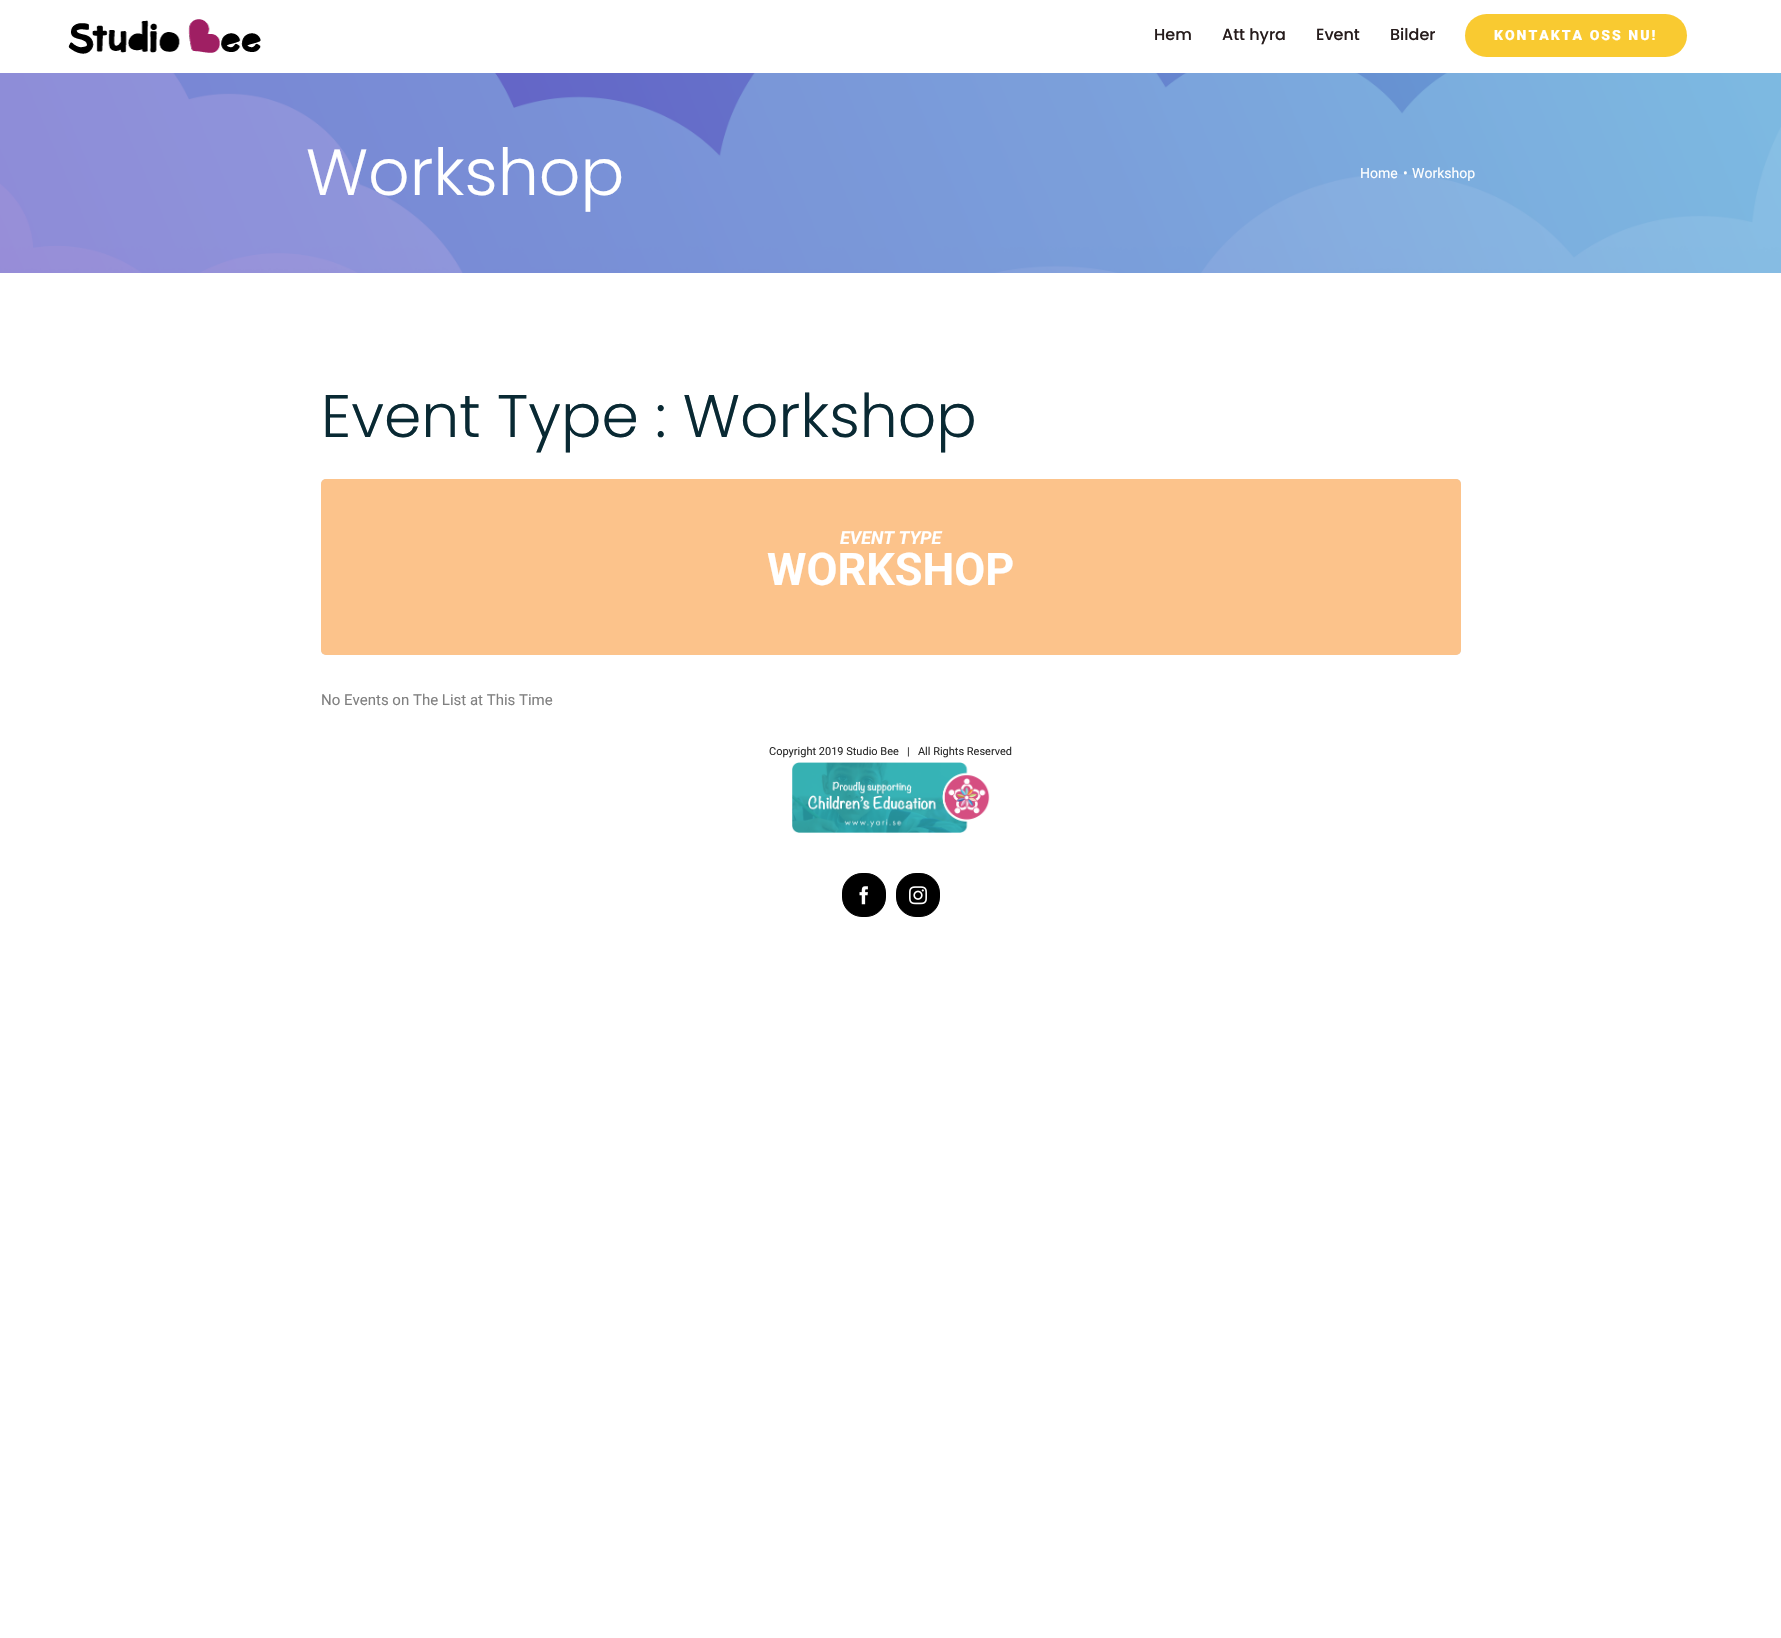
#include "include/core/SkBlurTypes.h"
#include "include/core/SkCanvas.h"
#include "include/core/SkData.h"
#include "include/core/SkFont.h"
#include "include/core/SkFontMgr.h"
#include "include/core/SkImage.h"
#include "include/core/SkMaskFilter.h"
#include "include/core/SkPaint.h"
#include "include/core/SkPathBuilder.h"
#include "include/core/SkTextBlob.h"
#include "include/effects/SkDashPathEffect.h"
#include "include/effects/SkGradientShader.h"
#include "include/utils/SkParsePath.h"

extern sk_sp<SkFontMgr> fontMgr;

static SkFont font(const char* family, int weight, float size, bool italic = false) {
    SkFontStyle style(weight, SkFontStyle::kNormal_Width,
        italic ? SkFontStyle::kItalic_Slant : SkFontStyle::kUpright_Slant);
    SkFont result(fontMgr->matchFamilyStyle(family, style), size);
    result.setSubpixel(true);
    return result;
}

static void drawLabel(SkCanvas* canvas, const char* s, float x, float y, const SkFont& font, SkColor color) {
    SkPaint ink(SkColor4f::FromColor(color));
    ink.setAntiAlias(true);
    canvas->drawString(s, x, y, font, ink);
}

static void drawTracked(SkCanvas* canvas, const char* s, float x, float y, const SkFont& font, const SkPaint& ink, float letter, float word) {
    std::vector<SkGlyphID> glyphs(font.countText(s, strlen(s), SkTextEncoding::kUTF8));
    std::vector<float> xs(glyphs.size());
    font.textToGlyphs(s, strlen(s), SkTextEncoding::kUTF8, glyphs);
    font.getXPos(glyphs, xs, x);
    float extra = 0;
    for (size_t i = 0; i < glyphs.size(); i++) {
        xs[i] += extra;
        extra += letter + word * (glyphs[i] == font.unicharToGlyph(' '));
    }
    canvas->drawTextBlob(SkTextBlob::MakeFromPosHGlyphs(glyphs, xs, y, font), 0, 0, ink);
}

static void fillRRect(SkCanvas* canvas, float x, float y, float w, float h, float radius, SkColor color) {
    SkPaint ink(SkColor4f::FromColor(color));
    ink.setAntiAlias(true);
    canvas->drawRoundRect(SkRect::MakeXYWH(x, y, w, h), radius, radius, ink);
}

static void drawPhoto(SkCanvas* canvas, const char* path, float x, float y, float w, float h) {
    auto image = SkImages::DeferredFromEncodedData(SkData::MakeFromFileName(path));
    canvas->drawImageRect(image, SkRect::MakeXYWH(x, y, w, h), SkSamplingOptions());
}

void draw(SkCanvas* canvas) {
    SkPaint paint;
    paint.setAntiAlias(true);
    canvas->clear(0xFFFFFFFF);
    drawPhoto(canvas, "assets/img1.png", 68, 19, 193, 35);
    SkFont font1 = font("Poppins", 500, 16);
    drawLabel(canvas, "Hem", 1154, 40, font1, 0xFF261C1C);
    drawLabel(canvas, "Att hyra", 1222, 40, font1, 0xFF261C1C);
    drawLabel(canvas, "Event", 1316, 40, font1, 0xFF261C1C);
    drawLabel(canvas, "Bilder", 1390, 40, font1, 0xFF261C1C);
    fillRRect(canvas, 1465, 14, 222, 43, 21.5f, 0xFFF9CA31);
    SkFont font2 = font("Roboto", 900, 14);
    paint.setColor(0xFFFFFFFF);
    drawTracked(canvas, "KONTAKTA OSS NU!", 1494, 40, font2, paint, 2, 0);
    drawPhoto(canvas, "assets/img2.png", 0, 73, 1781, 200);
    SkFont font3 = font("Poppins", 300, 65);
    drawLabel(canvas, "Workshop", 306, 195, font3, 0xFFFFFFFF);
    SkFont font4 = font("Roboto", 400, 14);
    drawLabel(canvas, "Home", 1360, 178, font4, 0xFFFFFFFF);
    drawLabel(canvas, "•", 1403, 178, font4, 0xFFFFFFFF);
    drawLabel(canvas, "Workshop", 1412, 178, font4, 0xFFFFFFFF);
    SkFont font5 = font("Poppins", 300, 60);
    drawLabel(canvas, "Event Type : Workshop", 321, 437, font5, 0xFF092933);
    fillRRect(canvas, 321, 479, 1140, 176, 5, 0xFFDCDCDC);
    fillRRect(canvas, 321, 479, 1140, 176, 5, 0xE3FFBF80);
    SkFont font6 = font("Roboto", 700, 18, true);
    drawLabel(canvas, "EVENT TYPE", 840, 544, font6, 0xFFFFFFFF);
    SkFont font7 = font("Roboto", 700, 45);
    drawLabel(canvas, "WORKSHOP", 767, 585, font7, 0xFFFFFFFF);
    SkFont font8 = font("Roboto", 400, 15);
    drawLabel(canvas, "No Events on The List at This Time", 321, 705, font8, 0xFF808080);
    SkFont font9 = font("Roboto", 400, 11);
    drawLabel(canvas, "Copyright 2019 Studio Bee   |   All Rights Reserved", 769, 755, font9, 0xFF2B2B2B);
    drawPhoto(canvas, "assets/img3.png", 792, 762, 198, 71);
    paint.setColor(0xFF000000);
    canvas->drawRoundRect(SkRect::MakeXYWH(842.5f, 873.5f, 43, 43), 19.5f, 19.5f, paint);
    paint.setStroke(true);
    paint.setStrokeWidth(1);
    canvas->drawRoundRect(SkRect::MakeXYWH(842.5f, 873.5f, 43, 43), 19.5f, 19.5f, paint);
    drawPhoto(canvas, "assets/img4.png", 859, 886, 9, 19);
    paint.setStroke(false);
    canvas->drawRoundRect(SkRect::MakeXYWH(896.5f, 873.5f, 43, 43), 19.5f, 19.5f, paint);
    paint.setStroke(true);
    canvas->drawRoundRect(SkRect::MakeXYWH(896.5f, 873.5f, 43, 43), 19.5f, 19.5f, paint);
    drawPhoto(canvas, "assets/img5.png", 909, 886, 18, 19);
}
